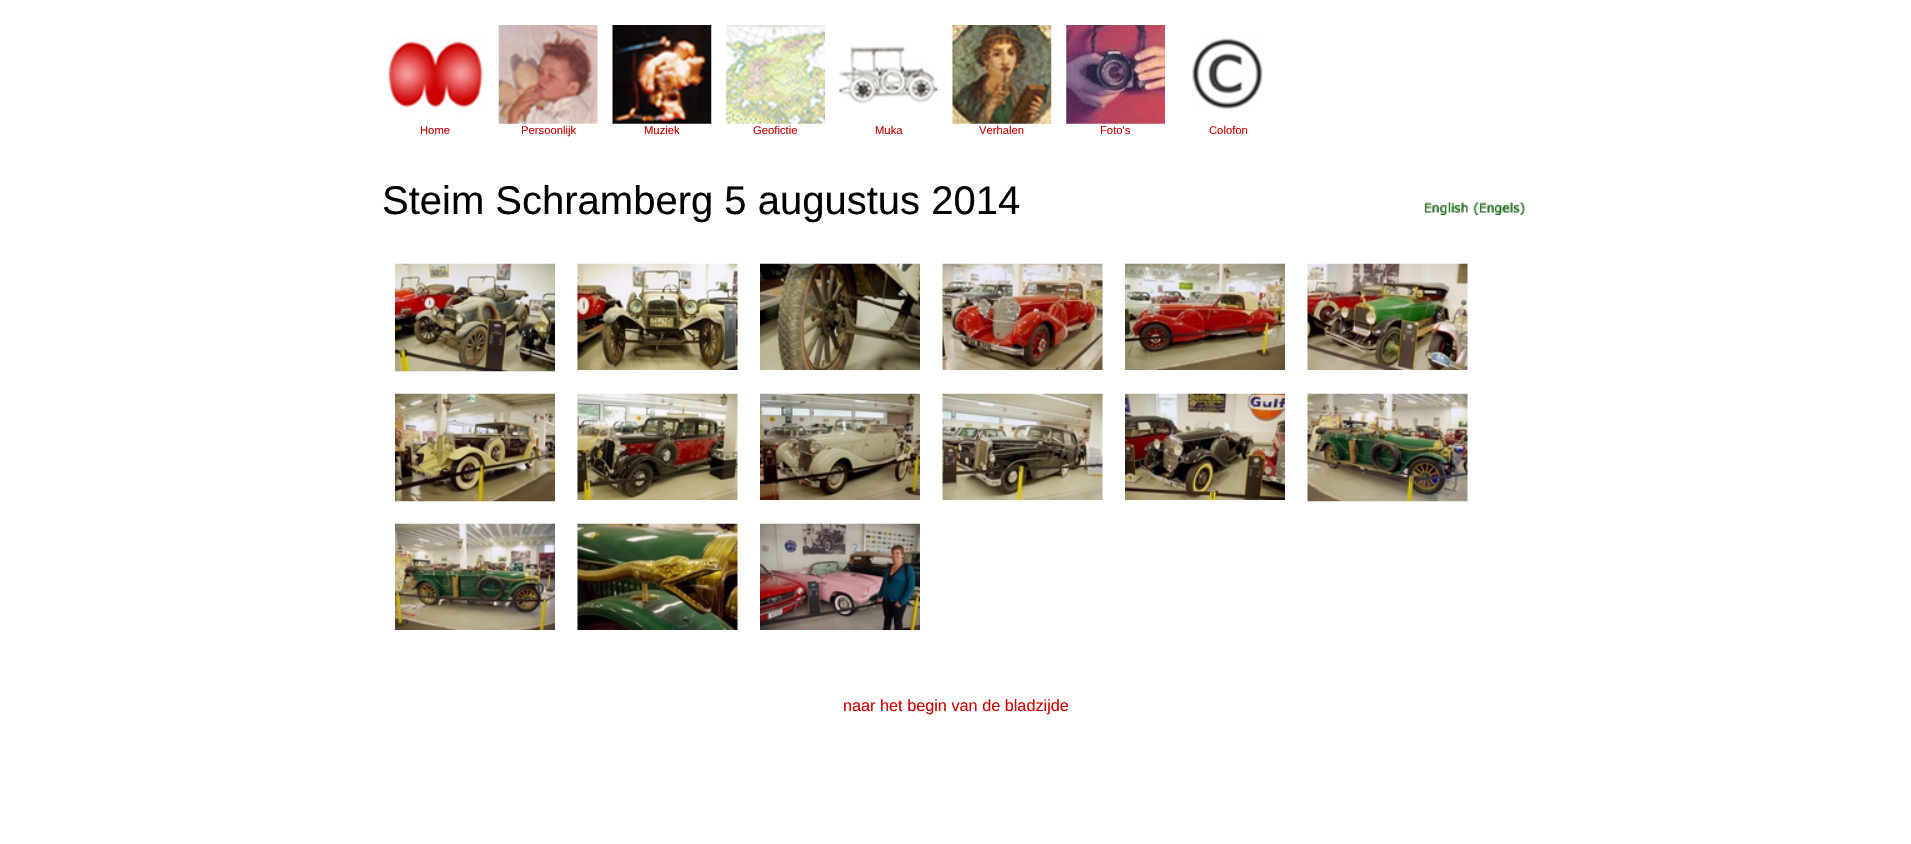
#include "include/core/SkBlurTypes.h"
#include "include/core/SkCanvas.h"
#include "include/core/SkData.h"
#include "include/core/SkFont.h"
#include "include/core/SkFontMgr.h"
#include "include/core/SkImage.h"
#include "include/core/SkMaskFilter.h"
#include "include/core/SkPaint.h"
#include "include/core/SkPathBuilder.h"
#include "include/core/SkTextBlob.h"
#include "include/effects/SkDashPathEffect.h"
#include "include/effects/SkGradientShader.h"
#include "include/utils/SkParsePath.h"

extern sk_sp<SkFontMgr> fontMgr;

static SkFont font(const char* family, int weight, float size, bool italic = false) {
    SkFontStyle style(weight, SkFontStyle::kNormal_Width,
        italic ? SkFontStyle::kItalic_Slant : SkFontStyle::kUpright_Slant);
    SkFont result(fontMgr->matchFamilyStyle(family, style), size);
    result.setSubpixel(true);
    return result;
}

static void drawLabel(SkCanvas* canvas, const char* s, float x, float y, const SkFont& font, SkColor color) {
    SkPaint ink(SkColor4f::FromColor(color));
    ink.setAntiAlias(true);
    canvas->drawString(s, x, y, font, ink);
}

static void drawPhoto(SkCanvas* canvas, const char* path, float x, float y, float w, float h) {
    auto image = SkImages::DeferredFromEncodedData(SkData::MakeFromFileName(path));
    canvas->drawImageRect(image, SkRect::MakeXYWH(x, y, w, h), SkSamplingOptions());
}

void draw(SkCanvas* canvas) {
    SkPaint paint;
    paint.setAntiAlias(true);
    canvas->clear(0xFFFFFFFF);
    drawPhoto(canvas, "assets/img1.png", 386, 35, 99, 78);
    SkFont font1 = font("Liberation Sans", 400, 11.25f);
    drawLabel(canvas, "Home", 420, 134, font1, 0xFFCC0000);
    drawPhoto(canvas, "assets/img2.png", 498, 25, 100, 99);
    drawLabel(canvas, "Persoonlijk", 521, 134, font1, 0xFFCC0000);
    drawPhoto(canvas, "assets/img3.png", 612, 25, 100, 99);
    drawLabel(canvas, "Muziek", 644, 134, font1, 0xFFCC0000);
    drawPhoto(canvas, "assets/img4.png", 726, 25, 99, 99);
    drawLabel(canvas, "Geofictie", 753, 134, font1, 0xFFCC0000);
    drawPhoto(canvas, "assets/img5.png", 838, 46, 100, 59);
    drawLabel(canvas, "Muka", 875, 134, font1, 0xFFCC0000);
    drawPhoto(canvas, "assets/img6.png", 952, 25, 100, 99);
    drawLabel(canvas, "Verhalen", 979, 134, font1, 0xFFCC0000);
    drawPhoto(canvas, "assets/img7.png", 1066, 25, 99, 99);
    drawLabel(canvas, "Foto's", 1100, 134, font1, 0xFFCC0000);
    drawPhoto(canvas, "assets/img8.png", 1192, 38, 71, 71);
    drawLabel(canvas, "Colofon", 1209, 134, font1, 0xFFCC0000);
    SkFont font2 = font("Liberation Sans", 400, 40);
    drawLabel(canvas, "Steim Schramberg 5 augustus 2014", 382, 214, font2, 0xFF000000);
    drawPhoto(canvas, "assets/img9.png", 1424, 202, 102, 13);
    drawPhoto(canvas, "assets/img10.png", 395, 263, 160, 109);
    drawPhoto(canvas, "assets/img11.png", 577, 263, 161, 107);
    drawPhoto(canvas, "assets/img12.png", 760, 263, 160, 107);
    drawPhoto(canvas, "assets/img13.png", 942, 263, 161, 107);
    drawPhoto(canvas, "assets/img14.png", 1125, 263, 160, 107);
    drawPhoto(canvas, "assets/img15.png", 1307, 263, 161, 107);
    drawPhoto(canvas, "assets/img16.png", 395, 393, 160, 109);
    drawPhoto(canvas, "assets/img17.png", 577, 393, 161, 107);
    drawPhoto(canvas, "assets/img18.png", 760, 393, 160, 107);
    drawPhoto(canvas, "assets/img19.png", 942, 393, 161, 107);
    drawPhoto(canvas, "assets/img20.png", 1125, 393, 160, 107);
    drawPhoto(canvas, "assets/img21.png", 1307, 393, 161, 109);
    drawPhoto(canvas, "assets/img22.png", 395, 523, 160, 107);
    drawPhoto(canvas, "assets/img23.png", 577, 523, 161, 107);
    drawPhoto(canvas, "assets/img24.png", 760, 523, 160, 107);
    SkFont font3 = font("Liberation Sans", 400, 16.25f);
    drawLabel(canvas, "naar het begin van de bladzijde", 843, 711, font3, 0xFFCC0000);
}
